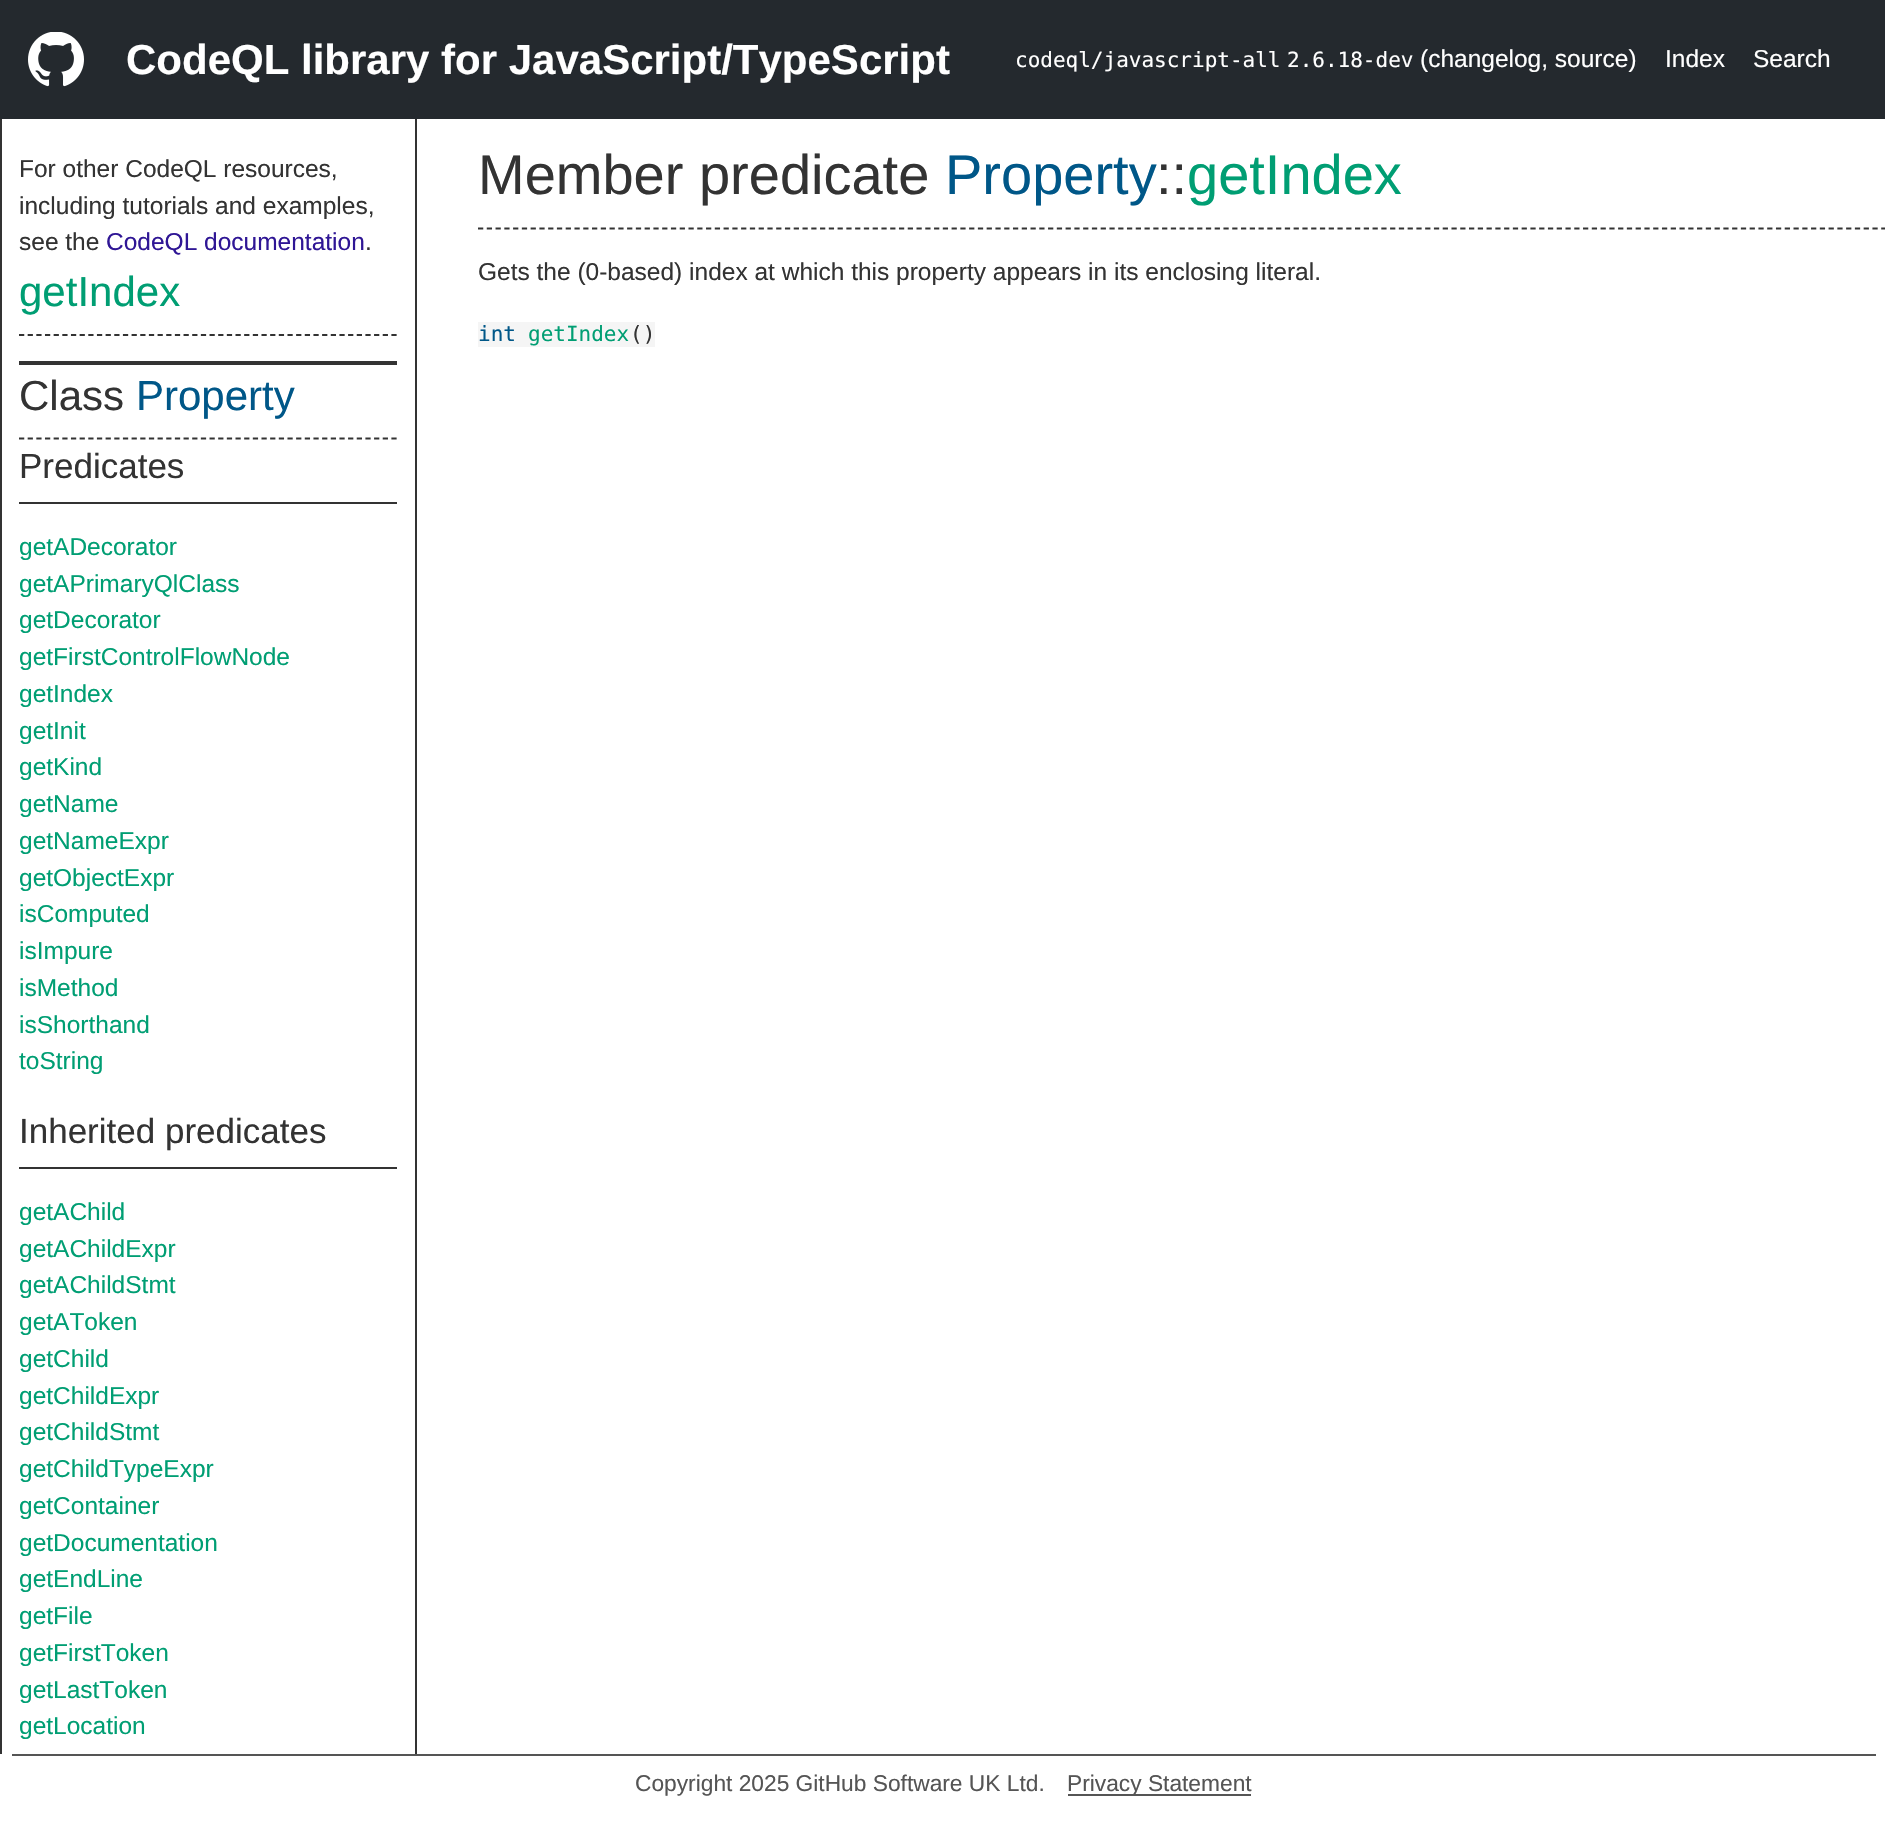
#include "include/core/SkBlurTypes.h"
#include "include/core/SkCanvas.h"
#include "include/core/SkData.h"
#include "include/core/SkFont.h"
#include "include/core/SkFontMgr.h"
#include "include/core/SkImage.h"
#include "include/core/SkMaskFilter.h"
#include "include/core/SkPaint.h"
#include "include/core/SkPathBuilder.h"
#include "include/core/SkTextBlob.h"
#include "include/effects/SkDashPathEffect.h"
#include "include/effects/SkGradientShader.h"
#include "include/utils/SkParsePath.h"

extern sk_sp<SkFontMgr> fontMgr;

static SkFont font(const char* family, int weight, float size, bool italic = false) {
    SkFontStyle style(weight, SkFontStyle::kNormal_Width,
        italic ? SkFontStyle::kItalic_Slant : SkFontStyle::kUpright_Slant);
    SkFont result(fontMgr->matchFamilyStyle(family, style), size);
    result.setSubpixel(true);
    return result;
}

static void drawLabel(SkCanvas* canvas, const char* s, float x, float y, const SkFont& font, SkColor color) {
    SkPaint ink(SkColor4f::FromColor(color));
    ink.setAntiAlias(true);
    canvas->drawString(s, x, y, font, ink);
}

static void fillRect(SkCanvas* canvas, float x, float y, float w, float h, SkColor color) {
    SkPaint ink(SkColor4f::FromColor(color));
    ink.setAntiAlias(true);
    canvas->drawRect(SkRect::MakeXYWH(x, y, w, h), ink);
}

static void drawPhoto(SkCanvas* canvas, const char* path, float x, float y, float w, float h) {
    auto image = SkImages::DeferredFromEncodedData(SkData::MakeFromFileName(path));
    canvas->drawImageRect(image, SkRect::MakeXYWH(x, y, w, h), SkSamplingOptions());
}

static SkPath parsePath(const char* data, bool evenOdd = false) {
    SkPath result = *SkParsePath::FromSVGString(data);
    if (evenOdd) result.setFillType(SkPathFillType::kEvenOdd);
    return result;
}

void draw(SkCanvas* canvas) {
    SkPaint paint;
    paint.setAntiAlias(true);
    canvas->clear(0xFFFFFFFF);
    fillRect(canvas, 0, 0, 1885, 119, 0xFF24292E);
    drawPhoto(canvas, "assets/img1.png", 28, 32, 56, 55);
    SkFont font1 = font("Liberation Sans", 700, 42);
    drawLabel(canvas, "CodeQL library for JavaScript/TypeScript", 126, 74, font1, 0xFFFFFFFF);
    SkFont font2 = font("DejaVu Sans Mono", 400, 21);
    drawLabel(canvas, "codeql/javascript-all", 1015, 67, font2, 0xFFFFFFFF);
    drawLabel(canvas, "2.6.18-dev", 1287, 67, font2, 0xFFFFFFFF);
    SkFont font3 = font("Liberation Sans", 400, 24.5f);
    drawLabel(canvas, "(changelog, source)", 1420, 67, font3, 0xFFFFFFFF);
    drawLabel(canvas, "Index", 1665, 67, font3, 0xFFFFFFFF);
    drawLabel(canvas, "Search", 1753, 67, font3, 0xFFFFFFFF);
    fillRect(canvas, 415, 119, 2, 1635, 0xFF333333);
    fillRect(canvas, 0, 119, 2, 1635, 0xFF333333);
    fillRect(canvas, 19, 361, 378, 4, 0xFF333333);
    drawLabel(canvas, "For other CodeQL resources,", 19, 177, font3, 0xFF333333);
    drawLabel(canvas, "including tutorials and examples,", 19, 214, font3, 0xFF333333);
    drawLabel(canvas, "see the", 19, 250, font3, 0xFF333333);
    drawLabel(canvas, "CodeQL documentation", 106, 250, font3, 0xFF2F1695);
    drawLabel(canvas, ".", 365, 250, font3, 0xFF333333);
    paint.setStroke(true);
    paint.setStrokeWidth(1.8f);
    paint.setColor(0xFF333333);
    paint.setPathEffect(SkDashPathEffect::Make({{5.25f, 3.41f}}, 0));
    canvas->drawPath(parsePath("M19 335H397"), paint);
    paint.setPathEffect(nullptr);
    SkFont font4 = font("Liberation Sans", 400, 42);
    drawLabel(canvas, "getIndex", 19, 306, font4, 0xFF009E73);
    paint.setPathEffect(SkDashPathEffect::Make({{5.25f, 3.41f}}, 0));
    canvas->drawPath(parsePath("M19 438.5H397"), paint);
    paint.setPathEffect(nullptr);
    drawLabel(canvas, "Class", 19, 410, font4, 0xFF333333);
    drawLabel(canvas, "Property", 136, 410, font4, 0xFF005788);
    fillRect(canvas, 19, 502, 378, 2, 0xFF333333);
    SkFont font5 = font("Liberation Sans", 400, 35);
    drawLabel(canvas, "Predicates", 19, 478, font5, 0xFF333333);
    drawLabel(canvas, "getADecorator", 19, 555, font3, 0xFF009E73);
    drawLabel(canvas, "getAPrimaryQlClass", 19, 592, font3, 0xFF009E73);
    drawLabel(canvas, "getDecorator", 19, 628, font3, 0xFF009E73);
    drawLabel(canvas, "getFirstControlFlowNode", 19, 665, font3, 0xFF009E73);
    drawLabel(canvas, "getIndex", 19, 702, font3, 0xFF009E73);
    drawLabel(canvas, "getInit", 19, 739, font3, 0xFF009E73);
    drawLabel(canvas, "getKind", 19, 775, font3, 0xFF009E73);
    drawLabel(canvas, "getName", 19, 812, font3, 0xFF009E73);
    drawLabel(canvas, "getNameExpr", 19, 849, font3, 0xFF009E73);
    drawLabel(canvas, "getObjectExpr", 19, 886, font3, 0xFF009E73);
    drawLabel(canvas, "isComputed", 19, 922, font3, 0xFF009E73);
    drawLabel(canvas, "isImpure", 19, 959, font3, 0xFF009E73);
    drawLabel(canvas, "isMethod", 19, 996, font3, 0xFF009E73);
    drawLabel(canvas, "isShorthand", 19, 1033, font3, 0xFF009E73);
    drawLabel(canvas, "toString", 19, 1069, font3, 0xFF009E73);
    fillRect(canvas, 19, 1167, 378, 2, 0xFF333333);
    drawLabel(canvas, "Inherited predicates", 19, 1143, font5, 0xFF333333);
    drawLabel(canvas, "getAChild", 19, 1220, font3, 0xFF009E73);
    drawLabel(canvas, "getAChildExpr", 19, 1257, font3, 0xFF009E73);
    drawLabel(canvas, "getAChildStmt", 19, 1293, font3, 0xFF009E73);
    drawLabel(canvas, "getAToken", 19, 1330, font3, 0xFF009E73);
    drawLabel(canvas, "getChild", 19, 1367, font3, 0xFF009E73);
    drawLabel(canvas, "getChildExpr", 19, 1404, font3, 0xFF009E73);
    drawLabel(canvas, "getChildStmt", 19, 1440, font3, 0xFF009E73);
    drawLabel(canvas, "getChildTypeExpr", 19, 1477, font3, 0xFF009E73);
    drawLabel(canvas, "getContainer", 19, 1514, font3, 0xFF009E73);
    drawLabel(canvas, "getDocumentation", 19, 1551, font3, 0xFF009E73);
    drawLabel(canvas, "getEndLine", 19, 1587, font3, 0xFF009E73);
    drawLabel(canvas, "getFile", 19, 1624, font3, 0xFF009E73);
    drawLabel(canvas, "getFirstToken", 19, 1661, font3, 0xFF009E73);
    drawLabel(canvas, "getLastToken", 19, 1698, font3, 0xFF009E73);
    drawLabel(canvas, "getLocation", 19, 1734, font3, 0xFF009E73);
    paint.setPathEffect(SkDashPathEffect::Make({{5.25f, 3.52f}}, 0));
    canvas->drawPath(parsePath("M478 228.5H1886.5"), paint);
    paint.setPathEffect(nullptr);
    SkFont font6 = font("Liberation Sans", 400, 56);
    drawLabel(canvas, "Member predicate", 478, 194, font6, 0xFF333333);
    drawLabel(canvas, "Property", 945, 194, font6, 0xFF005788);
    drawLabel(canvas, "::", 1156, 194, font6, 0xFF333333);
    drawLabel(canvas, "getIndex", 1187, 194, font6, 0xFF009E73);
    drawLabel(canvas, "Gets the (0-based) index at which this property appears in its enclosing literal.", 478, 280, font3, 0xFF333333);
    fillRect(canvas, 478, 322, 177, 25, 0xFFF5F5F5);
    drawLabel(canvas, "int", 478, 341, font2, 0xFF005788);
    drawLabel(canvas, "getIndex", 528, 341, font2, 0xFF009E73);
    drawLabel(canvas, "()", 630, 341, font2, 0xFF333333);
    fillRect(canvas, 12, 1754, 1864, 2, 0xFF555555);
    SkFont font7 = font("Liberation Sans", 400, 22.75f);
    drawLabel(canvas, "Copyright 2025 GitHub Software UK Ltd.", 635, 1791, font7, 0xFF555555);
    fillRect(canvas, 1068, 1794, 183, 2, 0xFF555555);
    drawLabel(canvas, "Privacy Statement", 1067, 1791, font7, 0xFF555555);
}
